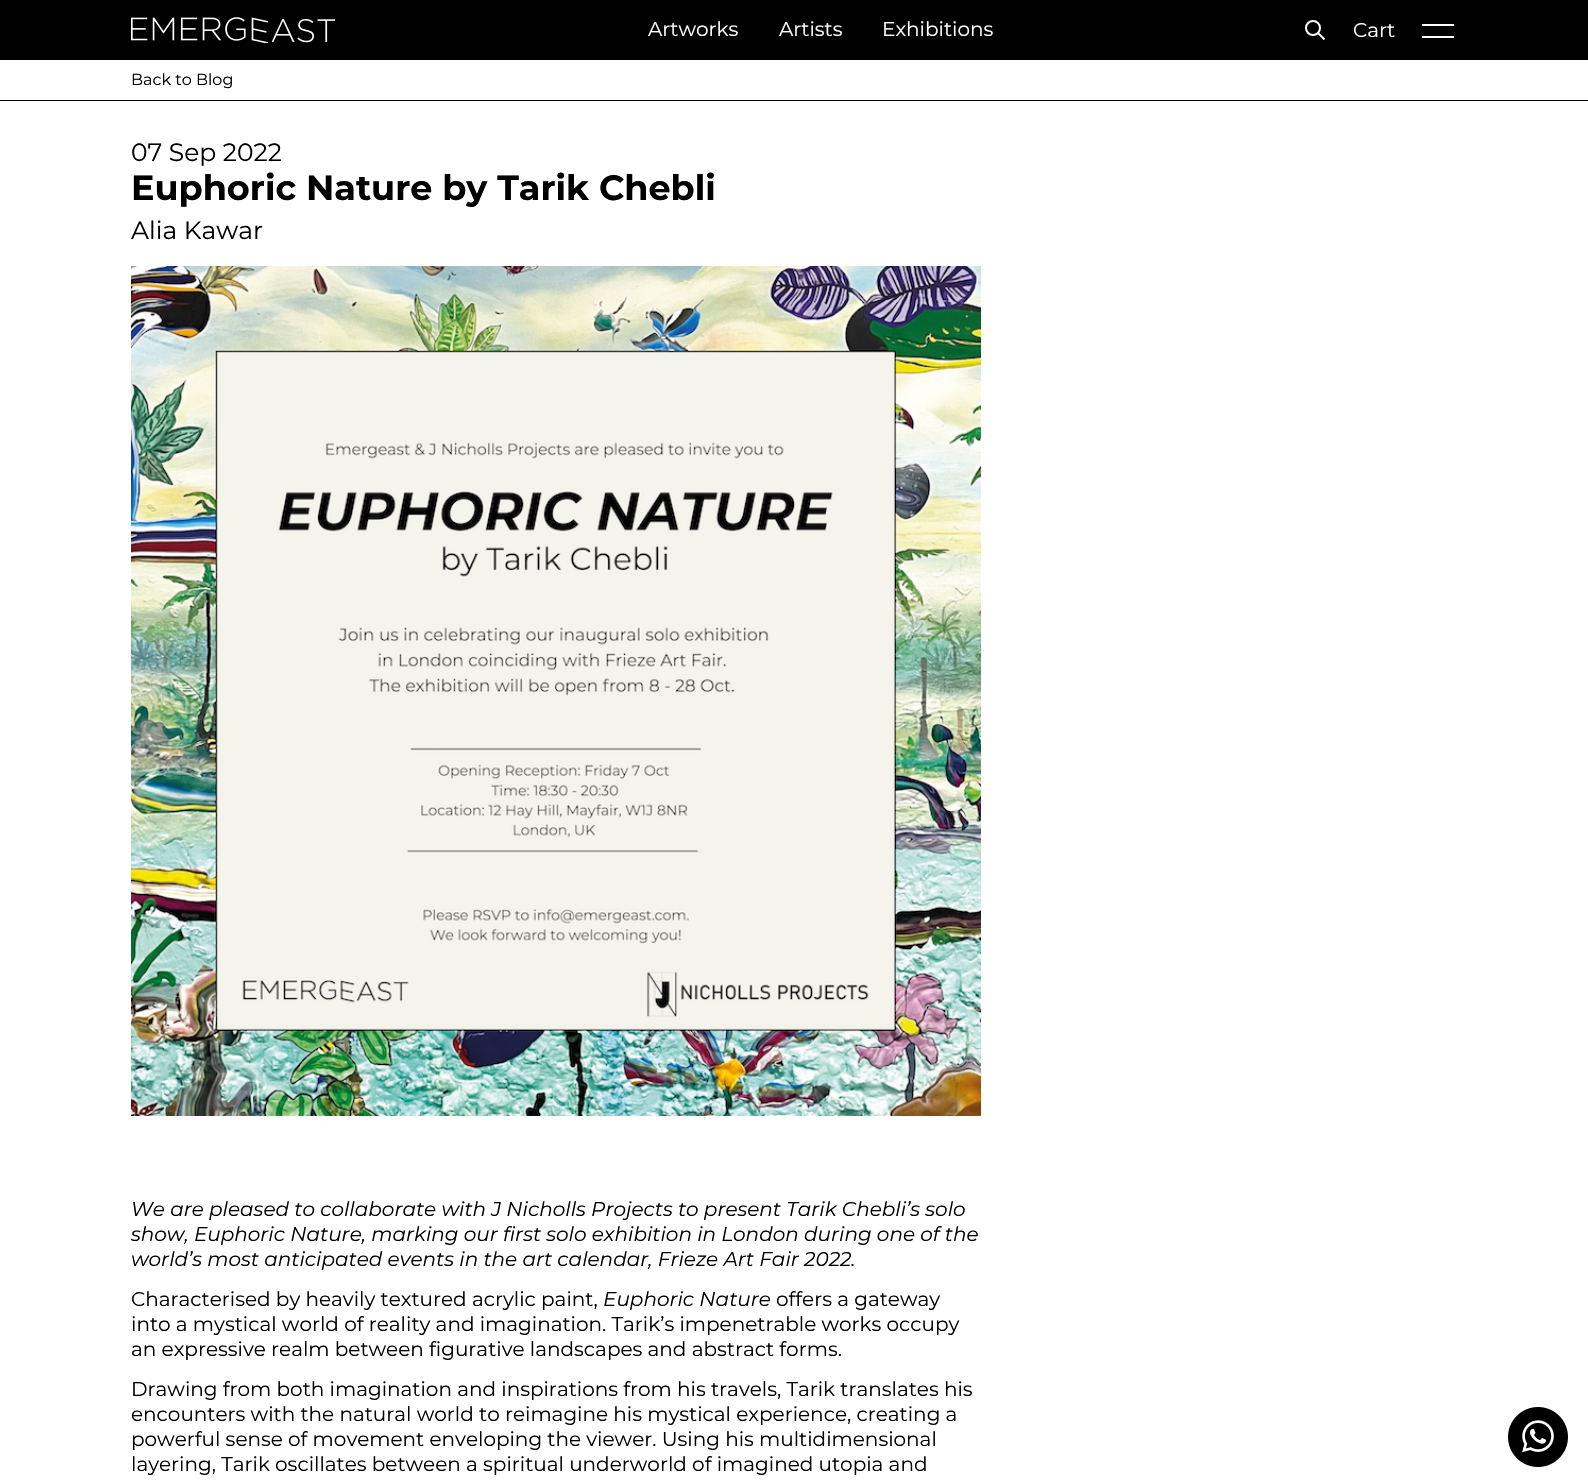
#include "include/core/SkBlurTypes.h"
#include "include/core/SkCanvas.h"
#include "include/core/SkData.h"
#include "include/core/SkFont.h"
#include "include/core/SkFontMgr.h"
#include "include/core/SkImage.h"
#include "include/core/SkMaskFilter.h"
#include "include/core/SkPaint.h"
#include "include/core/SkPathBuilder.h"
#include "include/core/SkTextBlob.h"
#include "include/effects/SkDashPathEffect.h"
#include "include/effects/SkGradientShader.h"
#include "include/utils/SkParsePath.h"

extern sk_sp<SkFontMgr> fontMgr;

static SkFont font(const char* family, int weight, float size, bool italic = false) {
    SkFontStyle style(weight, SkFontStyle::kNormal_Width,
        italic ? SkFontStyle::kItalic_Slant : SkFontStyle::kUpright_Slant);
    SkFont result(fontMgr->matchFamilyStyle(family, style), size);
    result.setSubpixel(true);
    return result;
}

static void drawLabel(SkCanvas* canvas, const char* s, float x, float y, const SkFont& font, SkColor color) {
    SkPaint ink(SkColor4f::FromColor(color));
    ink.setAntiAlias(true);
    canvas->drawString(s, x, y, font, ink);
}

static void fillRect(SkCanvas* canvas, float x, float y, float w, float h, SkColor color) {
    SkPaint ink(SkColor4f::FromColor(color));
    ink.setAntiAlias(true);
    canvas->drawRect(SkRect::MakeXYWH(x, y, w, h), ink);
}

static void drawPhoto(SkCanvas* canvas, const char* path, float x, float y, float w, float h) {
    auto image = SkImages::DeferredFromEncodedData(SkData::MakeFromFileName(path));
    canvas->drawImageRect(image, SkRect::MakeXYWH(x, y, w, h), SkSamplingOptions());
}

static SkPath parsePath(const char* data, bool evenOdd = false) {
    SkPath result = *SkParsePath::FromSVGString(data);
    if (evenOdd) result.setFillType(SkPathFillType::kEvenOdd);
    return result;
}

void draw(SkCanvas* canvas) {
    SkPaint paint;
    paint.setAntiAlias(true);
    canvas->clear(0xFFFFFFFF);
    fillRect(canvas, 0, 0, 1588, 60, 0xFF000000);
    drawPhoto(canvas, "assets/img1.png", 131, 17, 204, 26);
    SkFont font1 = font("Montserrat", 400, 20);
    drawLabel(canvas, "Artworks", 648, 36, font1, 0xFFFFFFFF);
    drawLabel(canvas, "Artists", 779, 36, font1, 0xFFFFFFFF);
    drawLabel(canvas, "Exhibitions", 882, 36, font1, 0xFFFFFFFF);
    paint.setStroke(true);
    paint.setStrokeWidth(2);
    paint.setColor(0xFFFFFFFF);
    canvas->drawPath(parsePath("M1317.5 32.5L1324.5 39.5"), paint);
    canvas->drawCircle(1313, 28, 7, paint);
    drawLabel(canvas, "Cart", 1353, 37, font1, 0xFFFFFFFF);
    fillRect(canvas, 1422, 24, 32, 2, 0xFFFFFFFF);
    fillRect(canvas, 1422, 36, 32, 2, 0xFFFFFFFF);
    fillRect(canvas, 0, 100, 1588, 1, 0xFF000000);
    SkFont font2 = font("Montserrat", 400, 16);
    drawLabel(canvas, "Back to Blog", 131, 85, font2, 0xFF000000);
    SkFont font3 = font("Montserrat", 400, 25);
    drawLabel(canvas, "07 Sep 2022", 131, 161, font3, 0xFF000000);
    SkFont font4 = font("Montserrat", 700, 35);
    drawLabel(canvas, "Euphoric Nature by Tarik Chebli", 131, 200, font4, 0xFF000000);
    drawLabel(canvas, "Alia Kawar", 131, 239, font3, 0xFF000000);
    drawPhoto(canvas, "assets/img2.png", 131, 266, 850, 850);
    SkFont font5 = font("Montserrat", 400, 20, true);
    drawLabel(canvas, "We are pleased to collaborate with J Nicholls Projects to present Tarik Chebli’s solo", 131, 1216, font5, 0xFF000000);
    drawLabel(canvas, "show, Euphoric Nature, marking our first solo exhibition in London during one of the", 131, 1241, font5, 0xFF000000);
    drawLabel(canvas, "world’s most anticipated events in the art calendar, Frieze Art Fair 2022.", 131, 1266, font5, 0xFF000000);
    drawLabel(canvas, "Characterised by heavily textured acrylic paint,", 131, 1306, font1, 0xFF000000);
    drawLabel(canvas, "Euphoric Nature", 603, 1306, font5, 0xFF000000);
    drawLabel(canvas, "offers a gateway", 776, 1306, font1, 0xFF000000);
    drawLabel(canvas, "into a mystical world of reality and imagination. Tarik’s impenetrable works occupy", 131, 1331, font1, 0xFF000000);
    drawLabel(canvas, "an expressive realm between figurative landscapes and abstract forms.", 131, 1356, font1, 0xFF000000);
    drawLabel(canvas, "Drawing from both imagination and inspirations from his travels, Tarik translates his", 131, 1396, font1, 0xFF000000);
    drawLabel(canvas, "encounters with the natural world to reimagine his mystical experience, creating a", 131, 1421, font1, 0xFF000000);
    drawLabel(canvas, "powerful sense of movement enveloping the viewer. Using his multidimensional", 131, 1446, font1, 0xFF000000);
    drawLabel(canvas, "layering, Tarik oscillates between a spiritual underworld of imagined utopia and", 131, 1471, font1, 0xFF000000);
    drawPhoto(canvas, "assets/img3.png", 1508, 1407, 60, 60);
}
